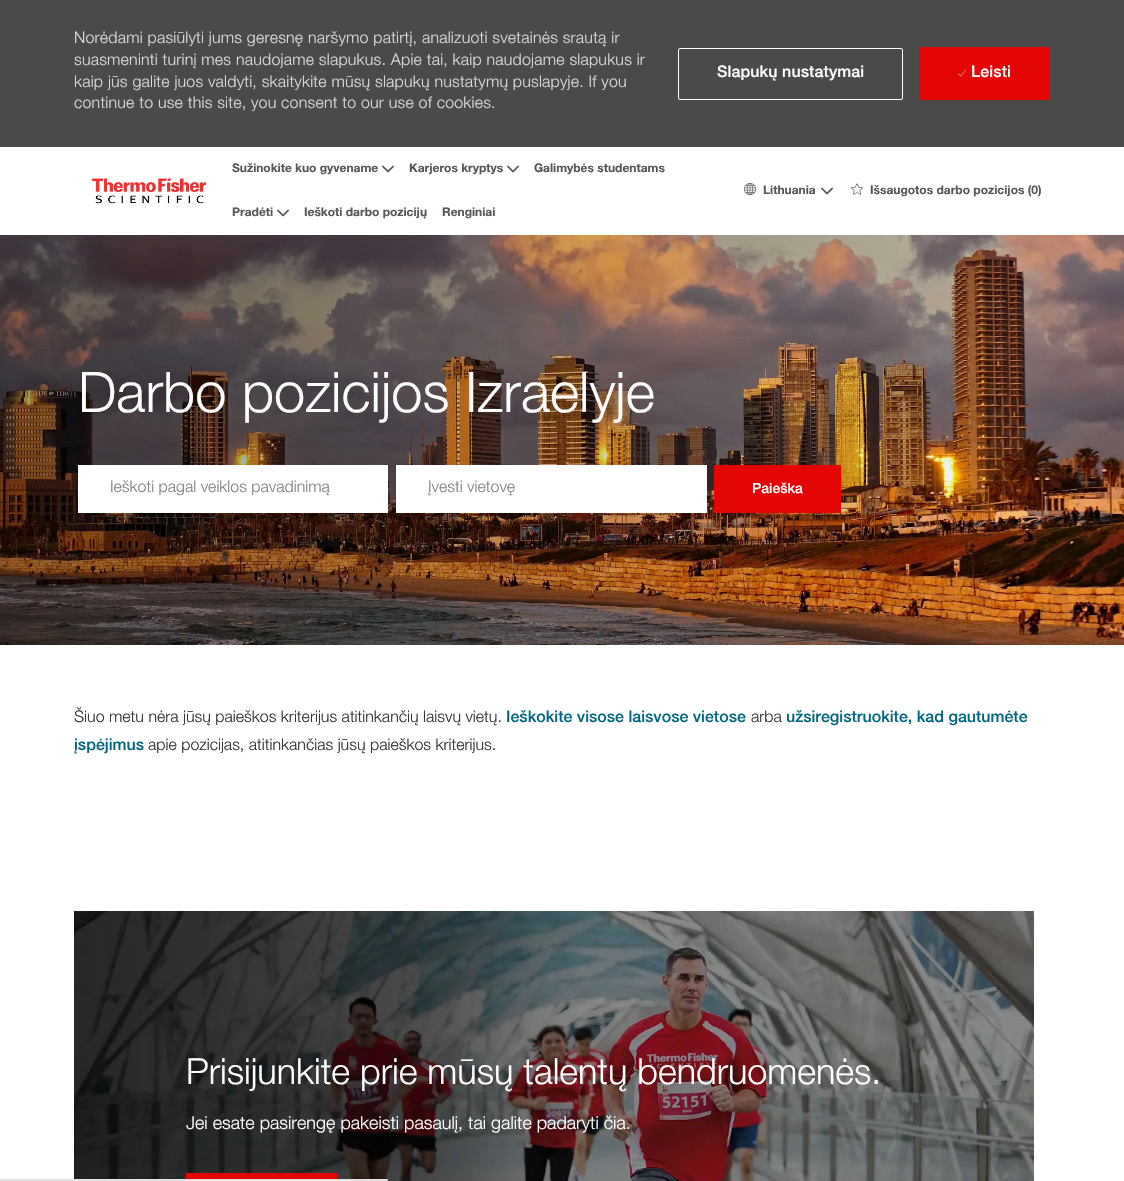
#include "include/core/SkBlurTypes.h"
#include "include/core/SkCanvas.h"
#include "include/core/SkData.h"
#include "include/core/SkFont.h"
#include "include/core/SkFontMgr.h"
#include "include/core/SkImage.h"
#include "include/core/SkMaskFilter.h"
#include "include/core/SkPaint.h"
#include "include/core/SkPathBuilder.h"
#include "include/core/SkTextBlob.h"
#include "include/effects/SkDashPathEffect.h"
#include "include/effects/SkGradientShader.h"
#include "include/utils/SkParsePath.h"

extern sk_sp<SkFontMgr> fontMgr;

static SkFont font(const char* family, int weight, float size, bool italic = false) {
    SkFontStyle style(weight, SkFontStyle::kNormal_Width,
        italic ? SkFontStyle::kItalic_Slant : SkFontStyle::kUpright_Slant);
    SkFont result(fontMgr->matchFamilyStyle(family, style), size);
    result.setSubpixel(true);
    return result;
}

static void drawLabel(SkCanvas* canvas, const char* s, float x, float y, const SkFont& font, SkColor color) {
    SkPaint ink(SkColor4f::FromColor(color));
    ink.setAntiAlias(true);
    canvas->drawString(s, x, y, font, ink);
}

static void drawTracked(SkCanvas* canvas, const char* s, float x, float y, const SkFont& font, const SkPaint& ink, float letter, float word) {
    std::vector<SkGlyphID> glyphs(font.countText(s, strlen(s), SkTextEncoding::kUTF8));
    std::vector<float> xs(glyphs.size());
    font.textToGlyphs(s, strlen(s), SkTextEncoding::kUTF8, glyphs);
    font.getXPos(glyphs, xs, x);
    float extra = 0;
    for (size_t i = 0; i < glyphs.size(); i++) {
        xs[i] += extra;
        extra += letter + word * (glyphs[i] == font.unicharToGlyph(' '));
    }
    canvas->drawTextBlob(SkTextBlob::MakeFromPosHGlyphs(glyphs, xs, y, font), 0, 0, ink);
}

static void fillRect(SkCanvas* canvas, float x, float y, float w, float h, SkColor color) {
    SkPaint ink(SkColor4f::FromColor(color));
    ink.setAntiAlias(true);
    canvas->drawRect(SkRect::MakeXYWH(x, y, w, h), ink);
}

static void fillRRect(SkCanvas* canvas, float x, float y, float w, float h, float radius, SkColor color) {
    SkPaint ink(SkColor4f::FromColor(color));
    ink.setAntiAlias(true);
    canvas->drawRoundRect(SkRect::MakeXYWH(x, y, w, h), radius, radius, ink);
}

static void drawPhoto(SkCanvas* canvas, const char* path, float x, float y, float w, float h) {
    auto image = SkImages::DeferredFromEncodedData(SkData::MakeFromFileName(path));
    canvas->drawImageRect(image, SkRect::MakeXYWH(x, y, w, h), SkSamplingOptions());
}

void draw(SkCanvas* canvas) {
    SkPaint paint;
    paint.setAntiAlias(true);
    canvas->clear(0xFFFFFFFF);
    fillRect(canvas, 0, 0, 1124, 147, 0xFF4A4A4A);
    SkFont font1 = font("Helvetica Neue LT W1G", 300, 16);
    paint.setColor(0xFFDBDBDB);
    drawTracked(canvas, "Norėdami pasiūlyti jums geresnę naršymo patirtį, analizuoti svetainės srautą ir", 74, 43, font1, paint, 0.2f, 0);
    drawTracked(canvas, "suasmeninti turinį mes naudojame slapukus. Apie tai, kaip naudojame slapukus ir", 74, 65, font1, paint, 0.2f, 0);
    drawTracked(canvas, "kaip jūs galite juos valdyti, skaitykite mūsų slapukų nustatymų puslapyje. If you", 74, 87, font1, paint, 0.2f, 0);
    drawTracked(canvas, "continue to use this site, you consent to our use of cookies.", 74, 108, font1, paint, 0.2f, 0);
    paint.setStroke(true);
    paint.setStrokeWidth(1);
    paint.setColor(0xFFFFFFFF);
    canvas->drawRoundRect(SkRect::MakeXYWH(678.5f, 48.5f, 224, 51), 1.5f, 1.5f, paint);
    SkFont font2 = font("Helvetica Neue LT W1G", 500, 16);
    paint.setStroke(false);
    drawTracked(canvas, "Slapukų nustatymai", 717, 77, font2, paint, 0.1f, 0);
    paint.setColor(0xFFE30605);
    canvas->drawRoundRect(SkRect::MakeXYWH(919.5f, 47.5f, 130, 52), 1.5f, 1.5f, paint);
    paint.setStroke(true);
    canvas->drawRoundRect(SkRect::MakeXYWH(919.5f, 47.5f, 130, 52), 1.5f, 1.5f, paint);
    drawPhoto(canvas, "assets/img1.png", 958, 69, 8, 8);
    paint.setStroke(false);
    paint.setColor(0xFFFFFFFF);
    drawTracked(canvas, "Leisti", 971, 77, font2, paint, 0.1f, 0);
    drawPhoto(canvas, "assets/img2.png", 92, 178, 115, 26);
    SkFont font3 = font("Helvetica Neue LT W1G", 700, 12);
    drawLabel(canvas, "Sužinokite kuo gyvename", 232, 172, font3, 0xFF54585A);
    drawPhoto(canvas, "assets/img3.png", 382, 165, 12, 8);
    drawLabel(canvas, "Karjeros kryptys", 409, 172, font3, 0xFF54585A);
    drawPhoto(canvas, "assets/img3.png", 507, 165, 12, 8);
    drawLabel(canvas, "Galimybės studentams", 534, 172, font3, 0xFF54585A);
    drawLabel(canvas, "Pradėti", 232, 216, font3, 0xFF54585A);
    drawPhoto(canvas, "assets/img3.png", 277, 209, 12, 8);
    drawLabel(canvas, "Ieškoti darbo pozicijų", 304, 216, font3, 0xFF54585A);
    drawLabel(canvas, "Renginiai", 442, 216, font3, 0xFF54585A);
    drawPhoto(canvas, "assets/img4.png", 744, 183, 12, 12);
    drawLabel(canvas, "Lithuania", 763, 194, font3, 0xFF54585A);
    drawPhoto(canvas, "assets/img3.png", 821, 187, 12, 8);
    drawPhoto(canvas, "assets/img5.png", 851, 183, 12, 12);
    drawLabel(canvas, "Išsaugotos darbo pozicijos (0)", 870, 194, font3, 0xFF54585A);
    drawPhoto(canvas, "assets/img6.png", 0, 235, 1124, 410);
    SkFont font4 = font("Helvetica Neue LT W1G", 300, 56);
    drawLabel(canvas, "Darbo pozicijos Izraelyje", 78, 412, font4, 0xFFFFFFFF);
    fillRect(canvas, 78, 465, 310, 48, 0xFFFFFFFF);
    drawLabel(canvas, "Ieškoti pagal veiklos pavadinimą", 110, 492, font1, 0xFF828282);
    fillRect(canvas, 396, 465, 311, 48, 0xFFFFFFFF);
    drawLabel(canvas, "Įvesti vietovę", 428, 492, font1, 0xFF828282);
    fillRect(canvas, 714, 465, 127, 48, 0xFFE30605);
    SkFont font5 = font("Helvetica Neue LT W1G", 500, 14);
    drawLabel(canvas, "Paieška", 752, 493, font5, 0xFFFFFFFF);
    drawLabel(canvas, "Šiuo metu nėra jūsų paieškos kriterijus atitinkančių laisvų vietų.", 74, 722, font1, 0xFF333333);
    drawLabel(canvas, "Ieškokite visose laisvose vietose", 506, 722, font2, 0xFF00677F);
    drawLabel(canvas, "arba", 751, 722, font1, 0xFF333333);
    drawLabel(canvas, "užsiregistruokite, kad gautumėte", 786, 722, font2, 0xFF00677F);
    drawLabel(canvas, "įspėjimus", 74, 750, font2, 0xFF00677F);
    drawLabel(canvas, "apie pozicijas, atitinkančias jūsų paieškos kriterijus.", 148, 750, font1, 0xFF333333);
    drawPhoto(canvas, "assets/img7.png", 74, 911, 960, 270);
    SkFont font6 = font("Helvetica Neue LT W1G", 300, 36);
    drawLabel(canvas, "Prisijunkite prie mūsų talentų bendruomenės.", 186, 1084, font6, 0xFFFFFFFF);
    SkFont font7 = font("Helvetica Neue LT W1G", 300, 18);
    drawLabel(canvas, "Jei esate pasirengę pakeisti pasaulį, tai galite padaryti čia.", 186, 1129, font7, 0xFFFFFFFF);
    fillRect(canvas, 186, 1173, 151, 6, 0xFFE30605);
    fillRRect(canvas, 0, 1179, 388, 2, 1, 0xFFE4E4E4);
}
